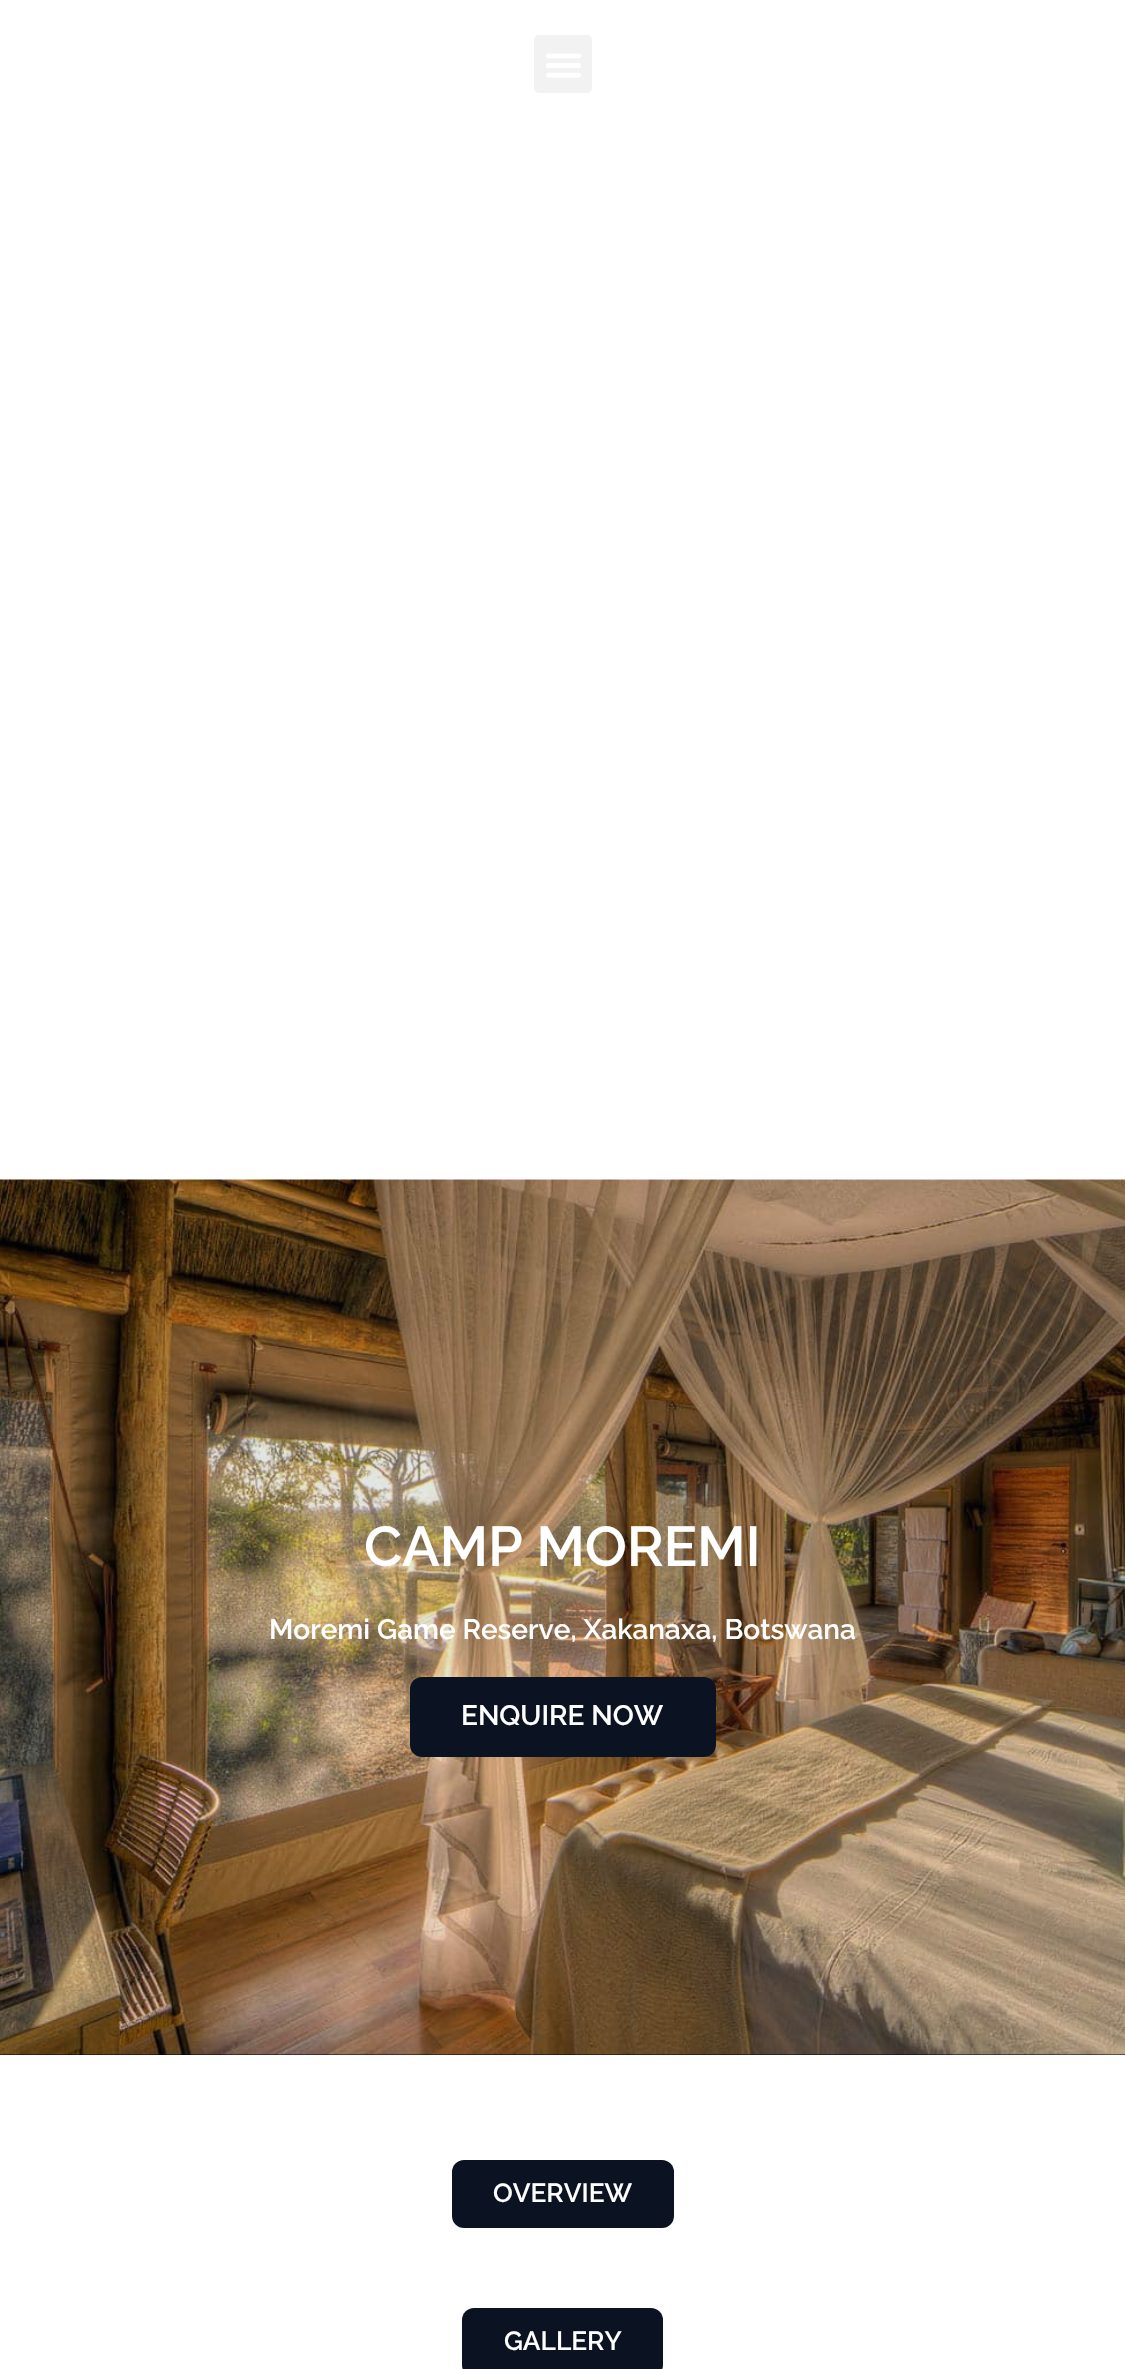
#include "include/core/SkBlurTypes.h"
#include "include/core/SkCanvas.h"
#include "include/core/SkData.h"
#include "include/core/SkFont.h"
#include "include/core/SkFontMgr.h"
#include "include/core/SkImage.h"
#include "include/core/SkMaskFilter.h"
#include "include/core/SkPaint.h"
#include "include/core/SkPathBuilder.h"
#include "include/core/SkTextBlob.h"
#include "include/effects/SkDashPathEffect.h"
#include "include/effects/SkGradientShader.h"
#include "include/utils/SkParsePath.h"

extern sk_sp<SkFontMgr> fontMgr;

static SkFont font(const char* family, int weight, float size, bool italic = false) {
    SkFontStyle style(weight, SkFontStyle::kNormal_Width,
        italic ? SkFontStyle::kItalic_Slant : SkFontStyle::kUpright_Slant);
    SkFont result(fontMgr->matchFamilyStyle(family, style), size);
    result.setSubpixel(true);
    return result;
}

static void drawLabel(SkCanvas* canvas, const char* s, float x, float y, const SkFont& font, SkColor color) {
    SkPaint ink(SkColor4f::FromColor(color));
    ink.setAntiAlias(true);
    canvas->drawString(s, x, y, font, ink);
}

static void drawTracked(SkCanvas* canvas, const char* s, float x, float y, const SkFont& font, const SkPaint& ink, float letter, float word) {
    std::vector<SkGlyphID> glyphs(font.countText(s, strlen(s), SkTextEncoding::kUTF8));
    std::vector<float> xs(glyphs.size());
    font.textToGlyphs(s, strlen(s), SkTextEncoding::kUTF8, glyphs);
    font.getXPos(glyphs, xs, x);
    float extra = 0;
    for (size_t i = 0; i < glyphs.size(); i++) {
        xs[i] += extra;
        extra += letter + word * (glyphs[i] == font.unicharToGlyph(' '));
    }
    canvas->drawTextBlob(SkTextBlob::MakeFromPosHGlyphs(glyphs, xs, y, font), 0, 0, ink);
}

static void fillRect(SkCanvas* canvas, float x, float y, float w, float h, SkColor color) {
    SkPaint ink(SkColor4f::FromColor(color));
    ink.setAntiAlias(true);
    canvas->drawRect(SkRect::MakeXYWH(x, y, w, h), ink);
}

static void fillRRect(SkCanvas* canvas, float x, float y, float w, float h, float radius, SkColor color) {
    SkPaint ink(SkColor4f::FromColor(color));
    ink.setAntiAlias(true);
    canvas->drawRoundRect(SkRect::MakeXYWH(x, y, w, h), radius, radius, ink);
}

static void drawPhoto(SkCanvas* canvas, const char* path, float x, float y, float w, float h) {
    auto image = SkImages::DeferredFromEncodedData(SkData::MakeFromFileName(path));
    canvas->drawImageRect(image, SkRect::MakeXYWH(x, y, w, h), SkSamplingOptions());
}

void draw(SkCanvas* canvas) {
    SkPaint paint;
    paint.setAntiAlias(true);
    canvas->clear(0xFFFFFFFF);
    fillRRect(canvas, 534, 35, 58, 58, 5, 0xFFF2F2F2);
    drawPhoto(canvas, "assets/img1.png", 546, 53, 35, 25);
    fillRect(canvas, 0, 2054, 1125, 1, 0xFF010203);
    drawPhoto(canvas, "assets/img2.png", 0, 1179, 1125, 876);
    SkFont font1 = font("Raleway", 600, 56);
    paint.setColor(0xFFFFFFFF);
    drawTracked(canvas, "CAMP MOREMI", 364, 1566, font1, paint, -0.25f, 0);
    SkFont font2 = font("Raleway", 600, 28);
    drawLabel(canvas, "Moremi Game Reserve, Xakanaxa, Botswana", 269, 1639, font2, 0xFFFFFFFF);
    fillRRect(canvas, 410, 1677, 306, 80, 12, 0xFF0B1222);
    drawLabel(canvas, "ENQUIRE NOW", 461, 1725, font2, 0xFFFFFFFF);
    fillRRect(canvas, 452, 2160, 222, 68, 12, 0xFF0B1222);
    SkFont font3 = font("Raleway", 600, 26.25f);
    drawLabel(canvas, "OVERVIEW", 493, 2202, font3, 0xFFFFFFFF);
    fillRRect(canvas, 462, 2308, 201, 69, 12, 0xFF0B1222);
    drawLabel(canvas, "GALLERY", 504, 2350, font3, 0xFFFFFFFF);
}
